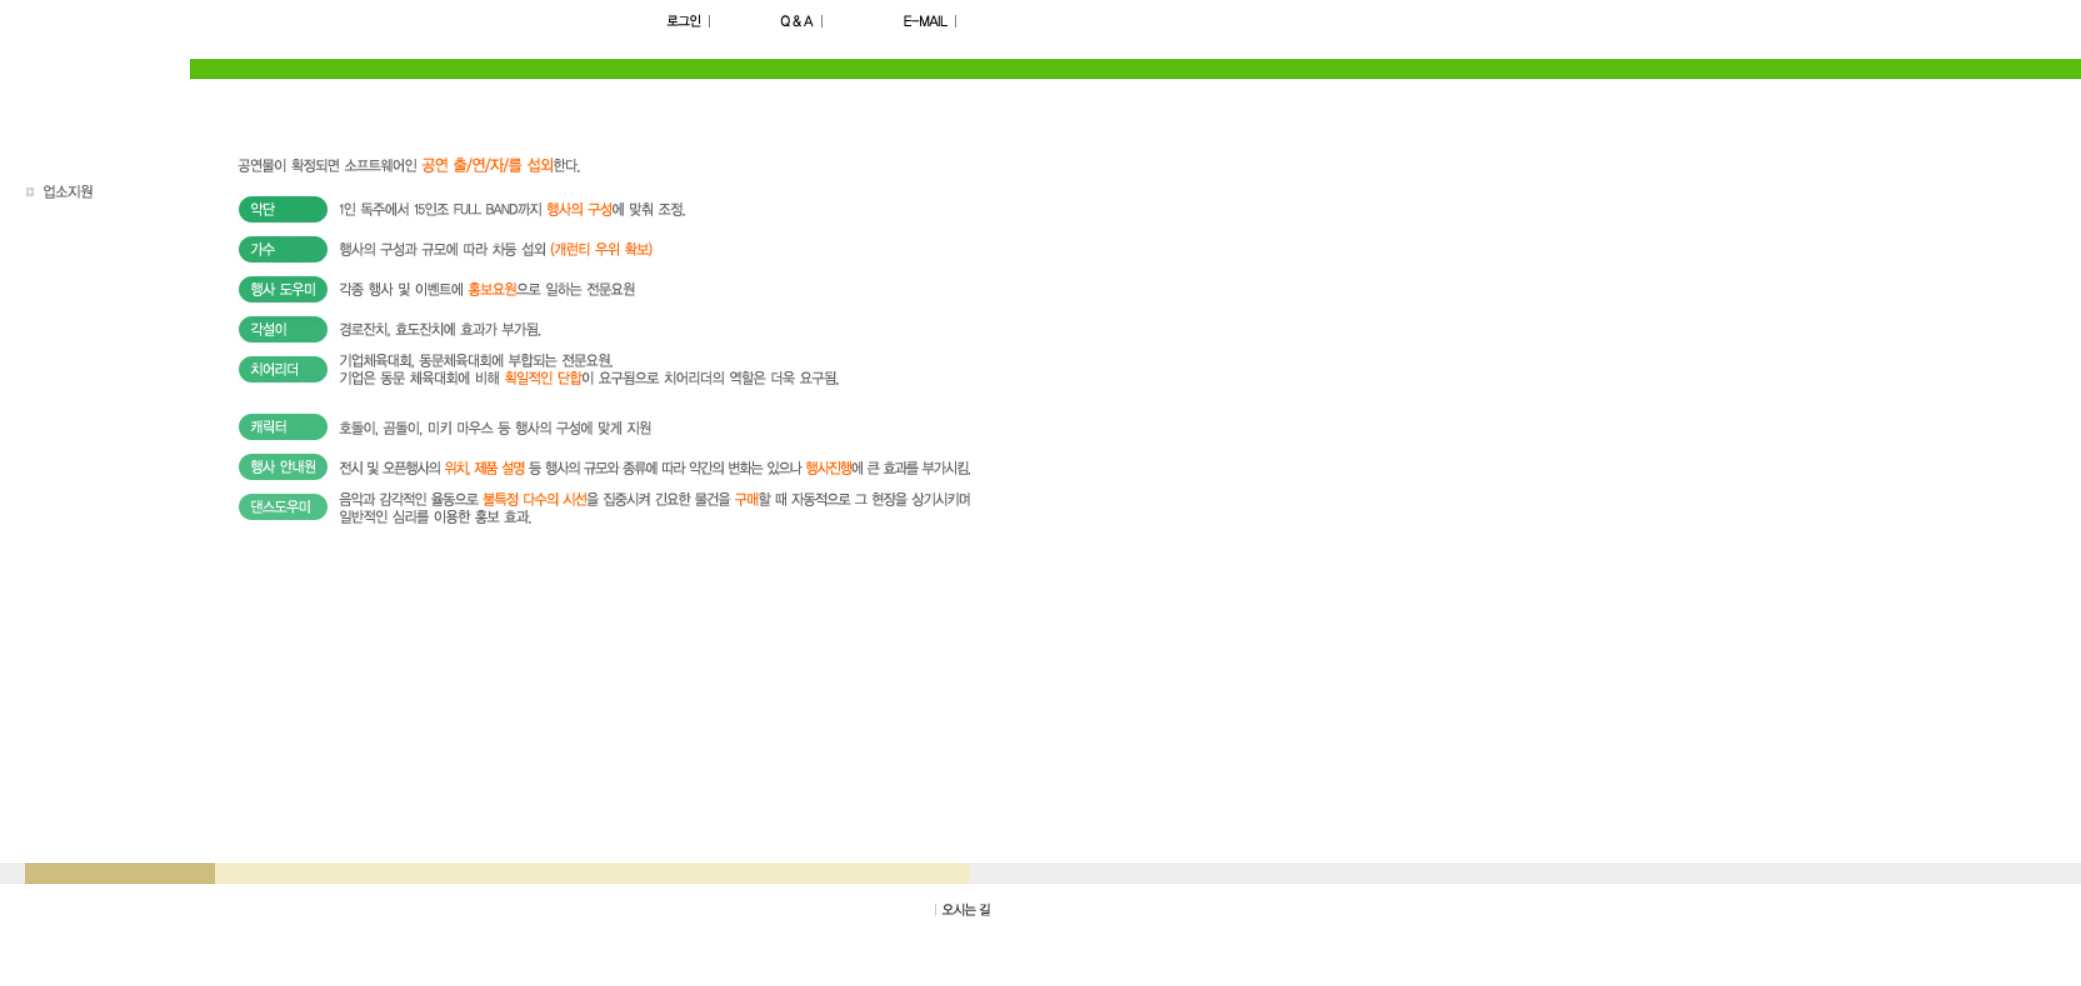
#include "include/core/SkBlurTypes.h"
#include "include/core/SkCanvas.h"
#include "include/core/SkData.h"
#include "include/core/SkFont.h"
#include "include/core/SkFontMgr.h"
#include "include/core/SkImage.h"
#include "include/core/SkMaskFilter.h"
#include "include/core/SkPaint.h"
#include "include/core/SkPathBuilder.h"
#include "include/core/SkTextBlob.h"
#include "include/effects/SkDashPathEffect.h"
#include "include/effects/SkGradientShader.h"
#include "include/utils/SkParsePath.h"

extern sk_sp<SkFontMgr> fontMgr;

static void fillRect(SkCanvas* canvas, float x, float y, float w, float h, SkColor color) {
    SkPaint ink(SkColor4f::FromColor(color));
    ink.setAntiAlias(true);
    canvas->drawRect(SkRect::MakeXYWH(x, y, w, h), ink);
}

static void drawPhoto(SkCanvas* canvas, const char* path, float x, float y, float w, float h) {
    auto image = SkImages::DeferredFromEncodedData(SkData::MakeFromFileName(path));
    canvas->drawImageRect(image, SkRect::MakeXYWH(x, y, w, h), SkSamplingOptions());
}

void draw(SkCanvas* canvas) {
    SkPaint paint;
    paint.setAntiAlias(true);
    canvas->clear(0xFFFFFFFF);
    drawPhoto(canvas, "assets/img1.png", 666, 13, 44, 15);
    drawPhoto(canvas, "assets/img2.png", 780, 14, 43, 14);
    drawPhoto(canvas, "assets/img3.png", 903, 14, 54, 14);
    drawPhoto(canvas, "assets/img4.png", 26, 184, 67, 15);
    fillRect(canvas, 190, 59, 1891, 20, 0xFF57BD0F);
    drawPhoto(canvas, "assets/img5.png", 237, 157, 734, 367);
    fillRect(canvas, 0, 863, 25, 21, 0xFFEEEEEE);
    fillRect(canvas, 25, 863, 190, 21, 0xFFCDBD81);
    fillRect(canvas, 215, 863, 755, 21, 0xFFF4EBC9);
    fillRect(canvas, 970, 863, 1111, 21, 0xFFEEEEEE);
    drawPhoto(canvas, "assets/img6.png", 935, 902, 56, 15);
}
